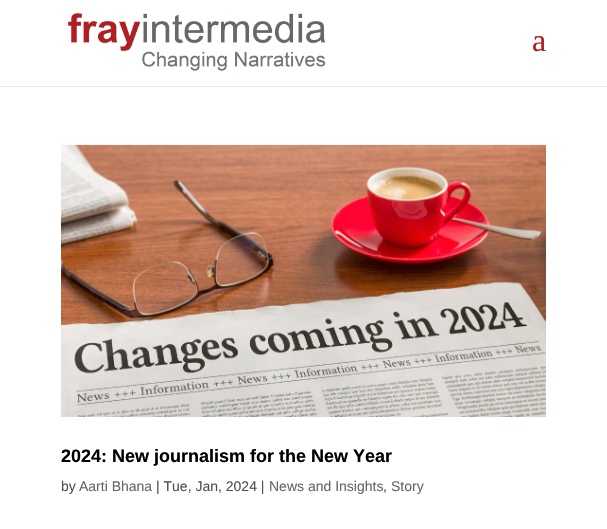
#include "include/core/SkBlurTypes.h"
#include "include/core/SkCanvas.h"
#include "include/core/SkData.h"
#include "include/core/SkFont.h"
#include "include/core/SkFontMgr.h"
#include "include/core/SkImage.h"
#include "include/core/SkMaskFilter.h"
#include "include/core/SkPaint.h"
#include "include/core/SkPathBuilder.h"
#include "include/core/SkTextBlob.h"
#include "include/effects/SkDashPathEffect.h"
#include "include/effects/SkGradientShader.h"
#include "include/utils/SkParsePath.h"

extern sk_sp<SkFontMgr> fontMgr;

static SkFont font(const char* family, int weight, float size, bool italic = false) {
    SkFontStyle style(weight, SkFontStyle::kNormal_Width,
        italic ? SkFontStyle::kItalic_Slant : SkFontStyle::kUpright_Slant);
    SkFont result(fontMgr->matchFamilyStyle(family, style), size);
    result.setSubpixel(true);
    return result;
}

static void drawLabel(SkCanvas* canvas, const char* s, float x, float y, const SkFont& font, SkColor color) {
    SkPaint ink(SkColor4f::FromColor(color));
    ink.setAntiAlias(true);
    canvas->drawString(s, x, y, font, ink);
}

static void fillRect(SkCanvas* canvas, float x, float y, float w, float h, SkColor color) {
    SkPaint ink(SkColor4f::FromColor(color));
    ink.setAntiAlias(true);
    canvas->drawRect(SkRect::MakeXYWH(x, y, w, h), ink);
}

static void drawPhoto(SkCanvas* canvas, const char* path, float x, float y, float w, float h) {
    auto image = SkImages::DeferredFromEncodedData(SkData::MakeFromFileName(path));
    canvas->drawImageRect(image, SkRect::MakeXYWH(x, y, w, h), SkSamplingOptions());
}

void draw(SkCanvas* canvas) {
    SkPaint paint;
    paint.setAntiAlias(true);
    canvas->clear(0xFFFFFFFF);
    fillRect(canvas, 0, 86, 607, 1, 0xFFE6E6E6);
    drawPhoto(canvas, "assets/img1.png", 68, 13, 258, 58);
    SkFont font1 = font("Liberation Serif", 400, 32);
    drawLabel(canvas, "a", 532, 51, font1, 0xFFB11E1E);
    drawPhoto(canvas, "assets/img2.png", 61, 144, 485, 273);
    SkFont font2 = font("Liberation Sans", 700, 18);
    drawLabel(canvas, "2024: New journalism for the New Year", 61, 462, font2, 0xFF000000);
    SkFont font3 = font("Liberation Sans", 400, 14);
    drawLabel(canvas, "by", 61, 491, font3, 0xFF4F4F4F);
    drawLabel(canvas, "Aarti Bhana", 79, 491, font3, 0xFF666666);
    drawLabel(canvas, "| Tue, Jan, 2024 |", 156, 491, font3, 0xFF4F4F4F);
    drawLabel(canvas, "News and Insights", 269, 491, font3, 0xFF666666);
    drawLabel(canvas, ",", 383, 491, font3, 0xFF4F4F4F);
    drawLabel(canvas, "Story", 391, 491, font3, 0xFF666666);
}
